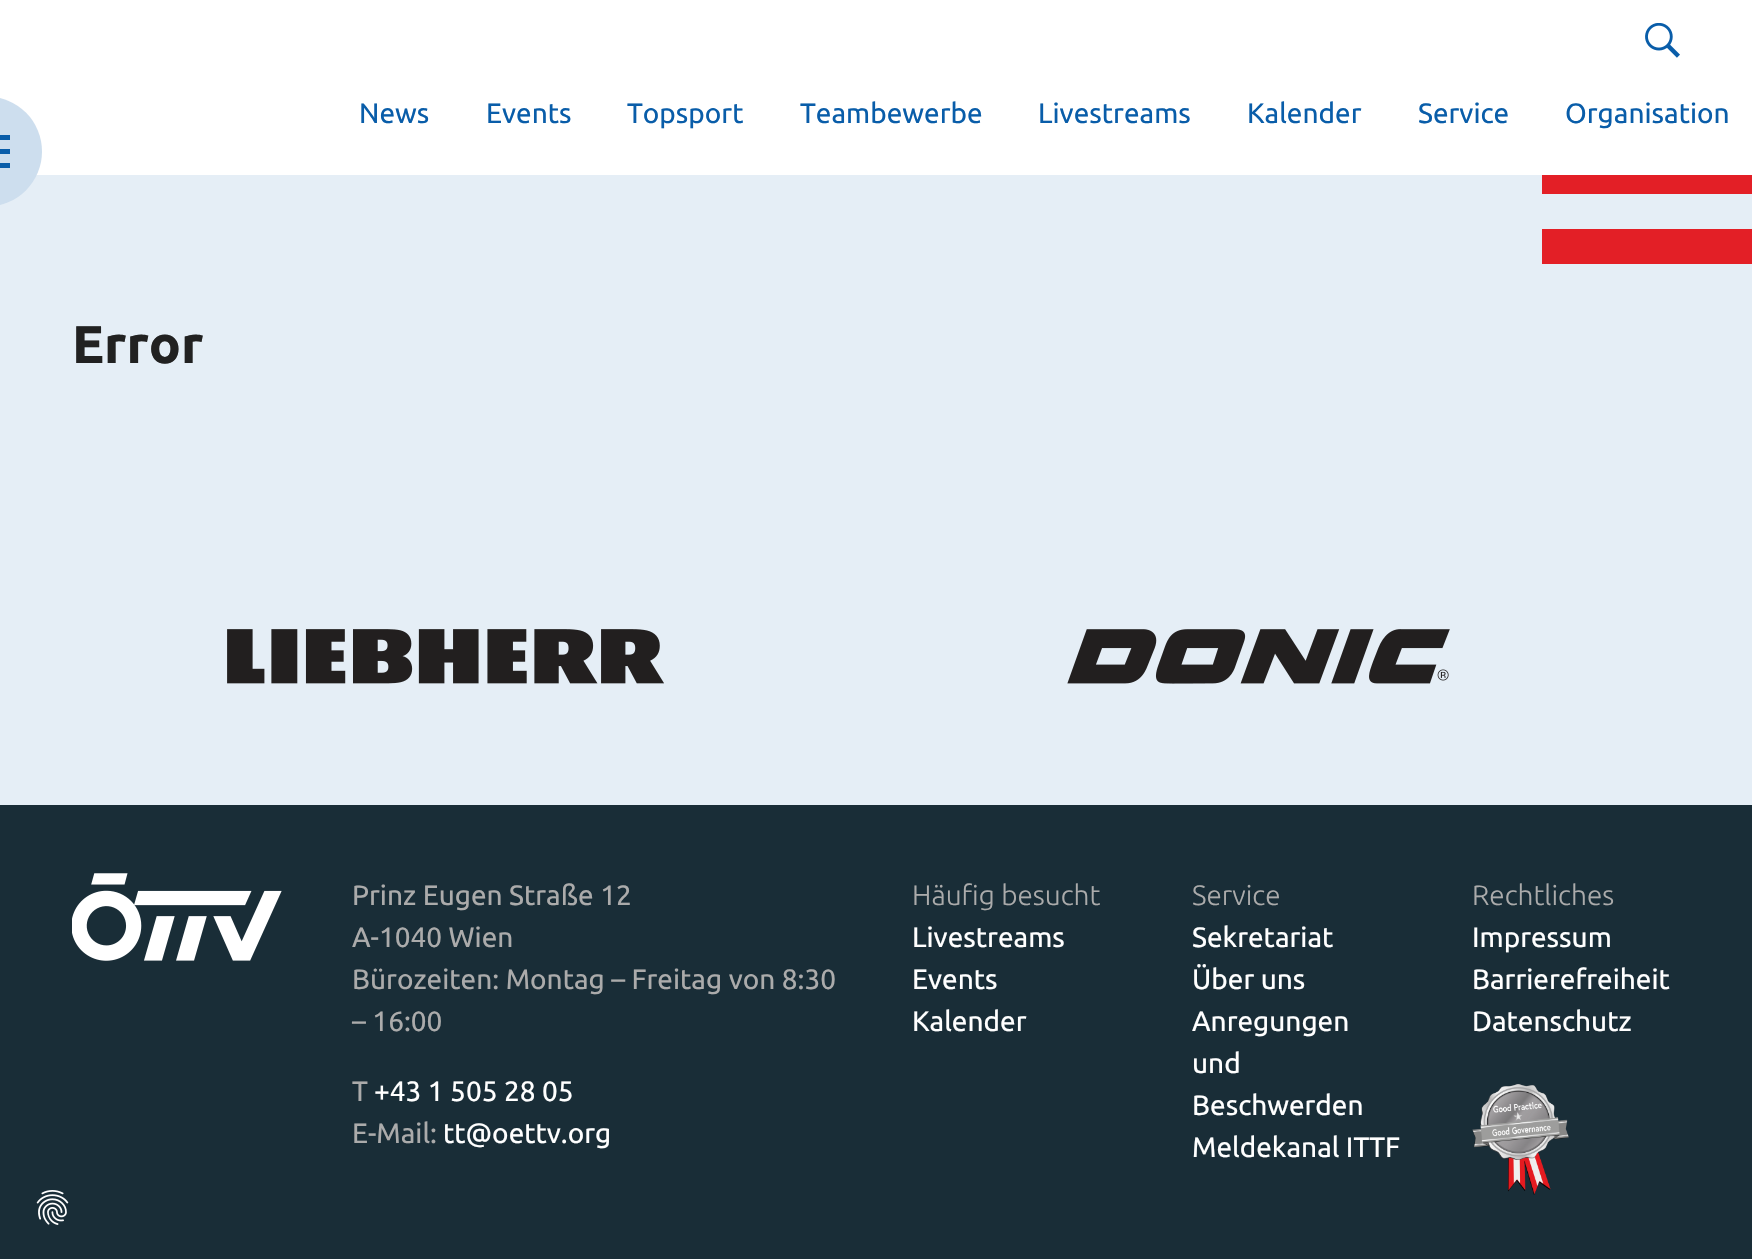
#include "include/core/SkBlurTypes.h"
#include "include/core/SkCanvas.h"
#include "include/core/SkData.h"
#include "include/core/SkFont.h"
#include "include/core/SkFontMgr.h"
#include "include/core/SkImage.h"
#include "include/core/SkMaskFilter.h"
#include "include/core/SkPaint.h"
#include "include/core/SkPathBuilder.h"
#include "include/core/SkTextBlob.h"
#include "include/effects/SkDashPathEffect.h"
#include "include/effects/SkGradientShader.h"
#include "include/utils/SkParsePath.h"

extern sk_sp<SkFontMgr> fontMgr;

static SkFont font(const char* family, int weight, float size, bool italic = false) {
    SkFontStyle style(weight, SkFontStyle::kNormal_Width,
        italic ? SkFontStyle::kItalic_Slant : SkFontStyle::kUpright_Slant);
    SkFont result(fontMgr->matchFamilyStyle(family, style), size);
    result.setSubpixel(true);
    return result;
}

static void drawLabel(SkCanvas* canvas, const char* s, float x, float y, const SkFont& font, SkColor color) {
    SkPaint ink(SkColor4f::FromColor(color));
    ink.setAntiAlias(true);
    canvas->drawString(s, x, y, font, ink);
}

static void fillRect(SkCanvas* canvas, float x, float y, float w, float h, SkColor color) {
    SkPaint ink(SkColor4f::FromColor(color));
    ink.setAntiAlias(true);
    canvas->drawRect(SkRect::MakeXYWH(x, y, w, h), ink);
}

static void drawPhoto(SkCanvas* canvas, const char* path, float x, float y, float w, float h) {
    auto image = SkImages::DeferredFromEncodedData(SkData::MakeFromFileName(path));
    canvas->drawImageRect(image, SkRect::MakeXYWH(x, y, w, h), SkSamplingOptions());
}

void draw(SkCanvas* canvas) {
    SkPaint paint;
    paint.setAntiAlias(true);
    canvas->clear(0xFF192D37);
    fillRect(canvas, 0, 0, 1752, 175, 0xFFFFFFFF);
    drawPhoto(canvas, "assets/img1.png", 1645, 23, 35, 35);
    fillRect(canvas, 0, 175, 1752, 630, 0xFFE5EEF6);
    paint.setColor(0xFFCDDEEE);
    canvas->drawCircle(-13, 151.5f, 55, paint);
    fillRect(canvas, 0, 135, 10, 5, 0xFF095DA9);
    fillRect(canvas, 0, 149, 10, 5, 0xFF095DA9);
    fillRect(canvas, 0, 163, 10, 5, 0xFF095DA9);
    SkFont font1 = font("Ubuntu", 400, 28);
    drawLabel(canvas, "News", 359, 123, font1, 0xFF095DA9);
    drawLabel(canvas, "Events", 486, 123, font1, 0xFF095DA9);
    drawLabel(canvas, "Topsport", 627, 123, font1, 0xFF095DA9);
    drawLabel(canvas, "Teambewerbe", 800, 123, font1, 0xFF095DA9);
    drawLabel(canvas, "Livestreams", 1038, 123, font1, 0xFF095DA9);
    drawLabel(canvas, "Kalender", 1247, 123, font1, 0xFF095DA9);
    drawLabel(canvas, "Service", 1418, 123, font1, 0xFF095DA9);
    drawLabel(canvas, "Organisation", 1565, 123, font1, 0xFF095DA9);
    fillRect(canvas, 1542, 175, 210, 19, 0xFFE31F26);
    fillRect(canvas, 1542, 229, 210, 35, 0xFFE31F26);
    SkFont font2 = font("Ubuntu", 700, 53);
    drawLabel(canvas, "Error", 72, 363, font2, 0xFF212121);
    drawPhoto(canvas, "assets/img2.png", 227, 629, 437, 55);
    drawPhoto(canvas, "assets/img3.png", 1067, 629, 383, 55);
    drawPhoto(canvas, "assets/img4.png", 72, 873, 210, 88);
    drawLabel(canvas, "Prinz Eugen Straße 12", 352, 905, font1, 0xFFABABAB);
    drawLabel(canvas, "A-1040 Wien", 352, 947, font1, 0xFFABABAB);
    drawLabel(canvas, "Bürozeiten: Montag – Freitag von 8:30", 352, 989, font1, 0xFFABABAB);
    drawLabel(canvas, "– 16:00", 352, 1031, font1, 0xFFABABAB);
    drawLabel(canvas, "T", 352, 1101, font1, 0xFFABABAB);
    drawLabel(canvas, "+43 1 505 28 05", 374, 1101, font1, 0xFFFFFFFF);
    drawLabel(canvas, "E-Mail:", 352, 1143, font1, 0xFFABABAB);
    drawLabel(canvas, "tt@oettv.org", 443, 1143, font1, 0xFFFFFFFF);
    SkFont font3 = font("Ubuntu", 300, 28);
    drawLabel(canvas, "Häufig besucht", 912, 905, font3, 0xFFABABAB);
    drawLabel(canvas, "Livestreams", 912, 947, font1, 0xFFFFFFFF);
    drawLabel(canvas, "Events", 912, 989, font1, 0xFFFFFFFF);
    drawLabel(canvas, "Kalender", 912, 1031, font1, 0xFFFFFFFF);
    drawLabel(canvas, "Service", 1192, 905, font3, 0xFFABABAB);
    drawLabel(canvas, "Sekretariat", 1192, 947, font1, 0xFFFFFFFF);
    drawLabel(canvas, "Über uns", 1192, 989, font1, 0xFFFFFFFF);
    drawLabel(canvas, "Anregungen", 1192, 1031, font1, 0xFFFFFFFF);
    drawLabel(canvas, "und", 1192, 1073, font1, 0xFFFFFFFF);
    drawLabel(canvas, "Beschwerden", 1192, 1115, font1, 0xFFFFFFFF);
    drawLabel(canvas, "Meldekanal ITTF", 1192, 1157, font1, 0xFFFFFFFF);
    drawLabel(canvas, "Rechtliches", 1472, 905, font3, 0xFFABABAB);
    drawLabel(canvas, "Impressum", 1472, 947, font1, 0xFFFFFFFF);
    drawLabel(canvas, "Barrierefreiheit", 1472, 989, font1, 0xFFFFFFFF);
    drawLabel(canvas, "Datenschutz", 1472, 1031, font1, 0xFFFFFFFF);
    drawPhoto(canvas, "assets/img5.png", 1472, 1084, 97, 111);
    drawPhoto(canvas, "assets/img6.png", 36, 1190, 33, 35);
}
